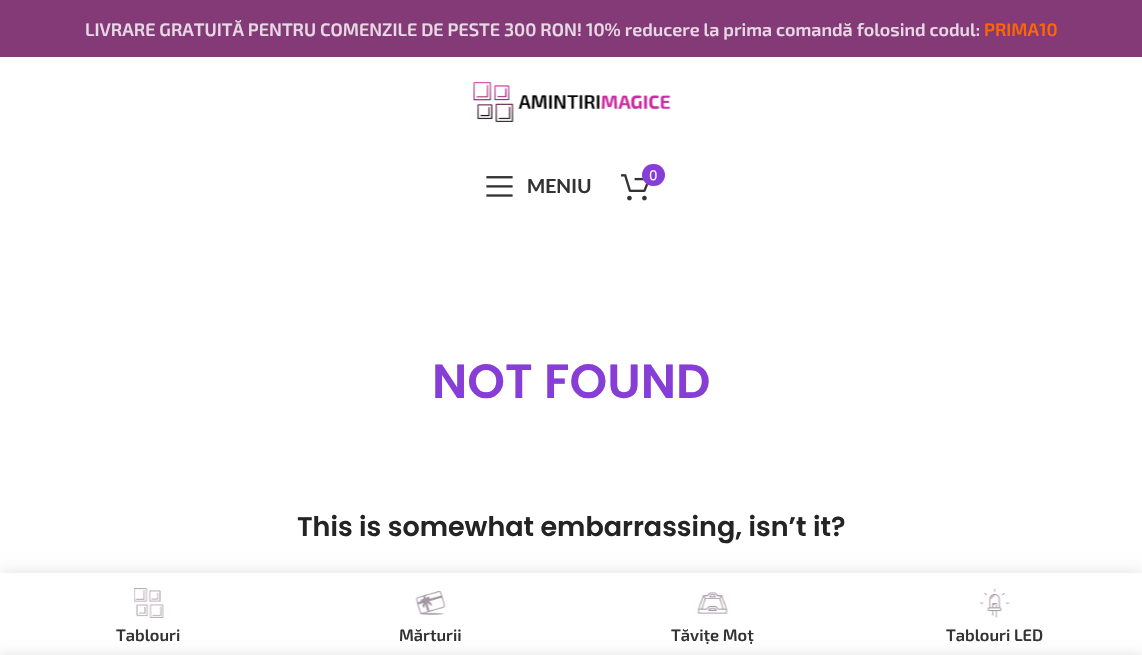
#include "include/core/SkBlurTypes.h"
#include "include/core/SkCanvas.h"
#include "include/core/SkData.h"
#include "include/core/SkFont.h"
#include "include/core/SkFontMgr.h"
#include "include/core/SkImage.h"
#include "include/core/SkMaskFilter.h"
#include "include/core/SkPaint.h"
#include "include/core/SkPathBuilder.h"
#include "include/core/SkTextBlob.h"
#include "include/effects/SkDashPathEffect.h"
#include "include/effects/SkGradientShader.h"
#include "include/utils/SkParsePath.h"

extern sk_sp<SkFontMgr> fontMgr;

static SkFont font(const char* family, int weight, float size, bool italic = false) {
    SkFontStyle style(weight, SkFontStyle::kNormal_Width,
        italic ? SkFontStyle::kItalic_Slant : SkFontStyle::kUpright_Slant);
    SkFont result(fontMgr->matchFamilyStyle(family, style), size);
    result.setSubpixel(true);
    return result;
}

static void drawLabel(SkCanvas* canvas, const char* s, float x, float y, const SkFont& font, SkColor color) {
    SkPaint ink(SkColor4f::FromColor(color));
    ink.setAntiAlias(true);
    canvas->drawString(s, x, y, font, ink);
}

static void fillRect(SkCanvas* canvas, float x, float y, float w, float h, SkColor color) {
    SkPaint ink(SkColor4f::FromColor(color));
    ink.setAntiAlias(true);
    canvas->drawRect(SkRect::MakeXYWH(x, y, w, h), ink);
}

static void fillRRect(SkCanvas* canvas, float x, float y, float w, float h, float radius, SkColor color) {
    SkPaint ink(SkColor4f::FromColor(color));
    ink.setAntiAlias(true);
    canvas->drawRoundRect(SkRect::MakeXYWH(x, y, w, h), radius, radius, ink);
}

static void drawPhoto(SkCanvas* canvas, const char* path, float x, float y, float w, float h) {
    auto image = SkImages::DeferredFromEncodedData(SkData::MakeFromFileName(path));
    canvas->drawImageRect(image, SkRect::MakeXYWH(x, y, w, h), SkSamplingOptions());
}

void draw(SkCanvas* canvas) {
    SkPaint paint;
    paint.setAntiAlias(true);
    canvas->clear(0xFFFFFFFF);
    fillRect(canvas, 0, 0, 1142, 57, 0xFF843A76);
    SkFont font1 = font("Exo 2", 600, 18);
    drawLabel(canvas, "LIVRARE GRATUITĂ PENTRU COMENZILE DE PESTE 300 RON! 10% reducere la prima comandă folosind codul:", 85, 36, font1, 0xFFE6D8E4);
    drawLabel(canvas, "PRIMA10", 984, 36, font1, 0xFFFF6600);
    drawPhoto(canvas, "assets/img1.png", 473, 82, 198, 40);
    drawPhoto(canvas, "assets/img2.png", 621, 174, 28, 27);
    fillRRect(canvas, 642, 164, 23, 22, 11, 0xFF873ED6);
    SkFont font2 = font("Exo 2", 400, 14);
    drawLabel(canvas, "0", 649, 180, font2, 0xFFFFFFFF);
    drawPhoto(canvas, "assets/img3.png", 486, 176, 27, 21);
    SkFont font3 = font("Lato", 700, 19.5f);
    drawLabel(canvas, "MENIU", 527, 193, font3, 0xFF333333);
    SkFont font4 = font("Poppins", 600, 48);
    drawLabel(canvas, "NOT FOUND", 432, 398, font4, 0xFF873ED6);
    SkFont font5 = font("Poppins", 600, 27);
    drawLabel(canvas, "This is somewhat embarrassing, isn’t it?", 297, 536, font5, 0xFF242424);
    paint.setColor(0x1F000000);
    paint.setMaskFilter(SkMaskFilter::MakeBlur(kNormal_SkBlurStyle, 7));
    canvas->drawRect(SkRect::MakeXYWH(0, 573, 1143, 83), paint);
    paint.setMaskFilter(nullptr);
    fillRect(canvas, 0, 573, 1142, 82, 0xFFFFFFFF);
    drawPhoto(canvas, "assets/img4.png", 134, 588, 30, 30);
    SkFont font6 = font("Exo 2", 600, 16.5f);
    drawLabel(canvas, "Tablouri", 116, 641, font6, 0xFF333333);
    drawPhoto(canvas, "assets/img5.png", 415, 590, 31, 25);
    drawLabel(canvas, "Mărturii", 399, 641, font6, 0xFF333333);
    drawPhoto(canvas, "assets/img6.png", 697, 592, 31, 22);
    canvas->save();
    canvas->clipRect(SkRect::MakeXYWH(587, 624, 252, 20));
    drawLabel(canvas, "Tăvițe Moț", 671, 641, font6, 0xFF333333);
    canvas->restore();
    drawPhoto(canvas, "assets/img7.png", 979, 588, 31, 30);
    drawLabel(canvas, "Tablouri LED", 946, 641, font6, 0xFF333333);
    paint.setColor(0x24000000);
    paint.setMaskFilter(SkMaskFilter::MakeBlur(kNormal_SkBlurStyle, 7));
    canvas->drawRect(SkRect::MakeXYWH(0, 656, 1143, 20), paint);
    paint.setMaskFilter(nullptr);
}
